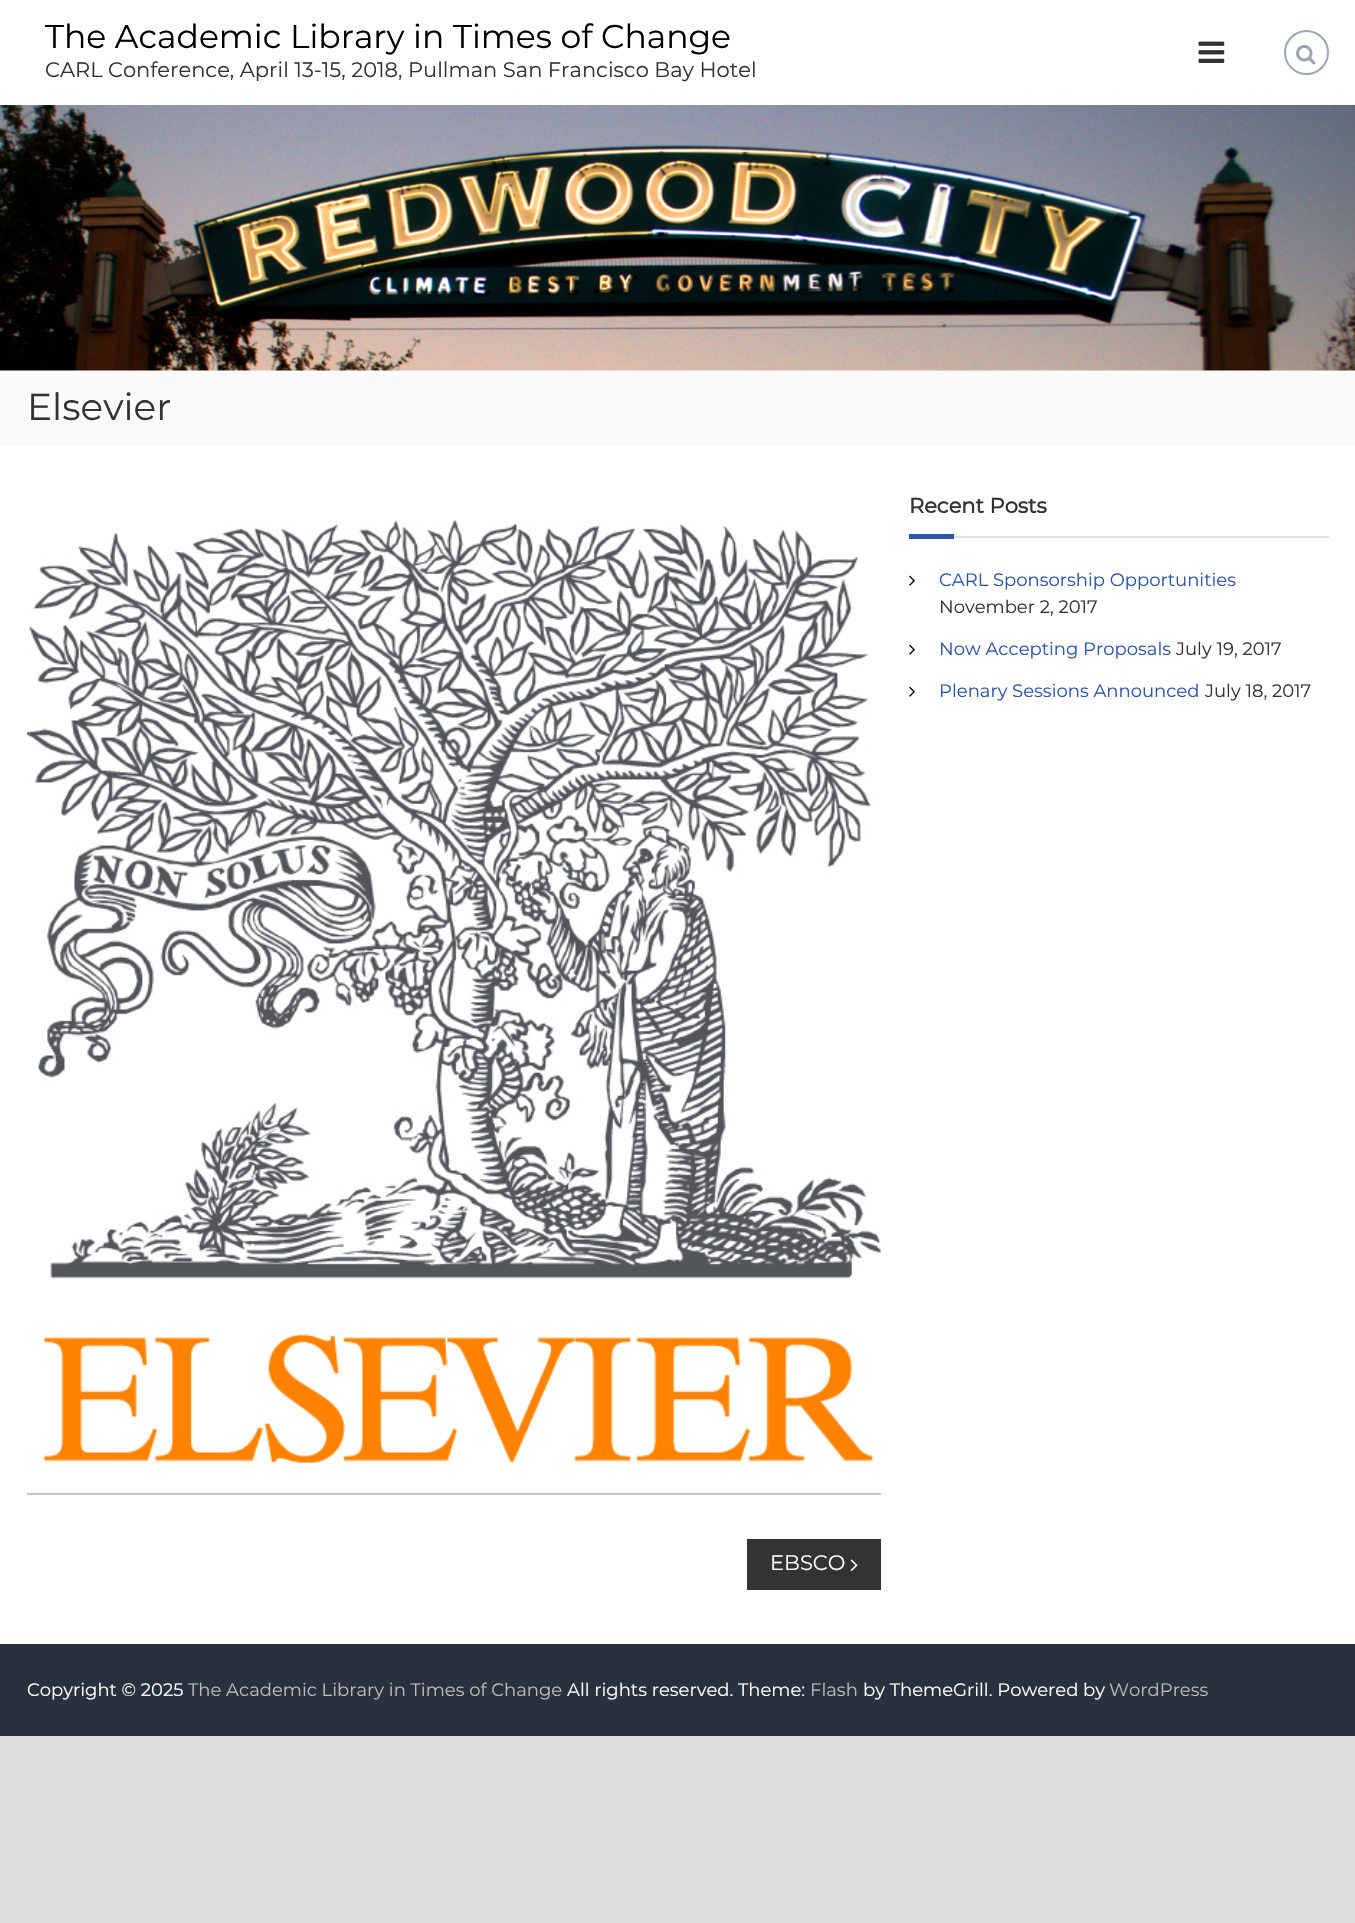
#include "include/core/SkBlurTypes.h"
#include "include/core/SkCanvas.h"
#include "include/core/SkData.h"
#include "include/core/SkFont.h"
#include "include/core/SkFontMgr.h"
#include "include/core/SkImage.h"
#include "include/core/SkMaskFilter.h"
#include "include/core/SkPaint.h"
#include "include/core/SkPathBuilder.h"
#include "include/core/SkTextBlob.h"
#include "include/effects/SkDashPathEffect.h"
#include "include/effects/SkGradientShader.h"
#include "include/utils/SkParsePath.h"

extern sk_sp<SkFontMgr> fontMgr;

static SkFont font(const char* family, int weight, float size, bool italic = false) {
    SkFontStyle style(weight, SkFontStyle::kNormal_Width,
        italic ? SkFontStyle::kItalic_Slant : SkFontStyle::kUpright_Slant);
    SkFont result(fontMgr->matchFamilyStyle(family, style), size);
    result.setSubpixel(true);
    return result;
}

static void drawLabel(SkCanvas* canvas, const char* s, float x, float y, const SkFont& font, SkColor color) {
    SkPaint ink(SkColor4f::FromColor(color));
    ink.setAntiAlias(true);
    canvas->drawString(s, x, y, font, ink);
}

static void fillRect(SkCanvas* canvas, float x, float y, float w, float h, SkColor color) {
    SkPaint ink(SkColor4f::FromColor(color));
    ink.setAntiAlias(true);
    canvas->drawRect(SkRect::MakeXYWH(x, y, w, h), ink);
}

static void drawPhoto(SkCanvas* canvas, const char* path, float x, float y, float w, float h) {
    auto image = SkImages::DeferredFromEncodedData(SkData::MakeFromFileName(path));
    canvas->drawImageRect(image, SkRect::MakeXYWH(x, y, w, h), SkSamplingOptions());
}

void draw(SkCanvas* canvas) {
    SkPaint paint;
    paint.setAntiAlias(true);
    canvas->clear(0xFFDDDDDD);
    fillRect(canvas, 0, 0, 1355, 1644, 0xFFFFFFFF);
    SkFont font1 = font("Montserrat", 400, 33);
    drawLabel(canvas, "The Academic Library in Times of Change", 45, 48, font1, 0xFF000000);
    SkFont font2 = font("Montserrat", 400, 21);
    drawLabel(canvas, "CARL Conference, April 13-15, 2018, Pullman San Francisco Bay Hotel", 45, 77, font2, 0xFF333333);
    drawPhoto(canvas, "assets/img1.png", 1198, 41, 27, 22);
    paint.setStroke(true);
    paint.setStrokeWidth(2);
    paint.setColor(0xFF9CA6B2);
    canvas->drawCircle(1306.5f, 52.5f, 21.5f, paint);
    drawPhoto(canvas, "assets/img2.png", 1296, 45, 20, 20);
    drawPhoto(canvas, "assets/img3.png", 0, 105, 1355, 266);
    fillRect(canvas, 0, 371, 1355, 75, 0xFFFAFAFA);
    SkFont font3 = font("Montserrat", 400, 37.5f);
    drawLabel(canvas, "Elsevier", 27, 420, font3, 0xFF333333);
    SkFont font4 = font("Montserrat", 700, 21);
    drawLabel(canvas, "Recent Posts", 909, 513, font4, 0xFF333333);
    fillRect(canvas, 909, 534, 45, 5, 0xFF2B55A8);
    fillRect(canvas, 954, 536, 375, 2, 0xFFE1E1E1);
    drawPhoto(canvas, "assets/img4.png", 909, 575, 6, 11);
    SkFont font5 = font("Montserrat", 400, 18);
    drawLabel(canvas, "CARL Sponsorship Opportunities", 939, 586, font5, 0xFF2B55A8);
    drawLabel(canvas, "November 2, 2017", 939, 613, font5, 0xFF333333);
    drawPhoto(canvas, "assets/img4.png", 909, 644, 6, 11);
    drawLabel(canvas, "Now Accepting Proposals", 939, 655, font5, 0xFF2B55A8);
    drawLabel(canvas, "July 19, 2017", 1176, 655, font5, 0xFF333333);
    drawPhoto(canvas, "assets/img4.png", 909, 686, 6, 11);
    drawLabel(canvas, "Plenary Sessions Announced", 939, 697, font5, 0xFF2B55A8);
    drawLabel(canvas, "July 18, 2017", 1205, 697, font5, 0xFF333333);
    drawPhoto(canvas, "assets/img5.png", 27, 520, 854, 943);
    fillRect(canvas, 27, 1493, 854, 2, 0xFFC5C5C5);
    fillRect(canvas, 747, 1539, 134, 51, 0xFF333333);
    drawLabel(canvas, "EBSCO", 770, 1570, font2, 0xFFFFFFFF);
    drawPhoto(canvas, "assets/img6.png", 850, 1559, 8, 12);
    fillRect(canvas, 0, 1644, 1355, 92, 0xFF28313D);
    drawLabel(canvas, "Copyright © 2025", 27, 1696, font5, 0xFFFFFFFF);
    drawLabel(canvas, "The Academic Library in Times of Change", 188, 1696, font5, 0xFFBCBABA);
    drawLabel(canvas, "All rights reserved. Theme:", 567, 1696, font5, 0xFFFFFFFF);
    drawLabel(canvas, "Flash", 810, 1696, font5, 0xFFBCBABA);
    drawLabel(canvas, "by ThemeGrill. Powered by", 863, 1696, font5, 0xFFFFFFFF);
    drawLabel(canvas, "WordPress", 1109, 1696, font5, 0xFFBCBABA);
}
